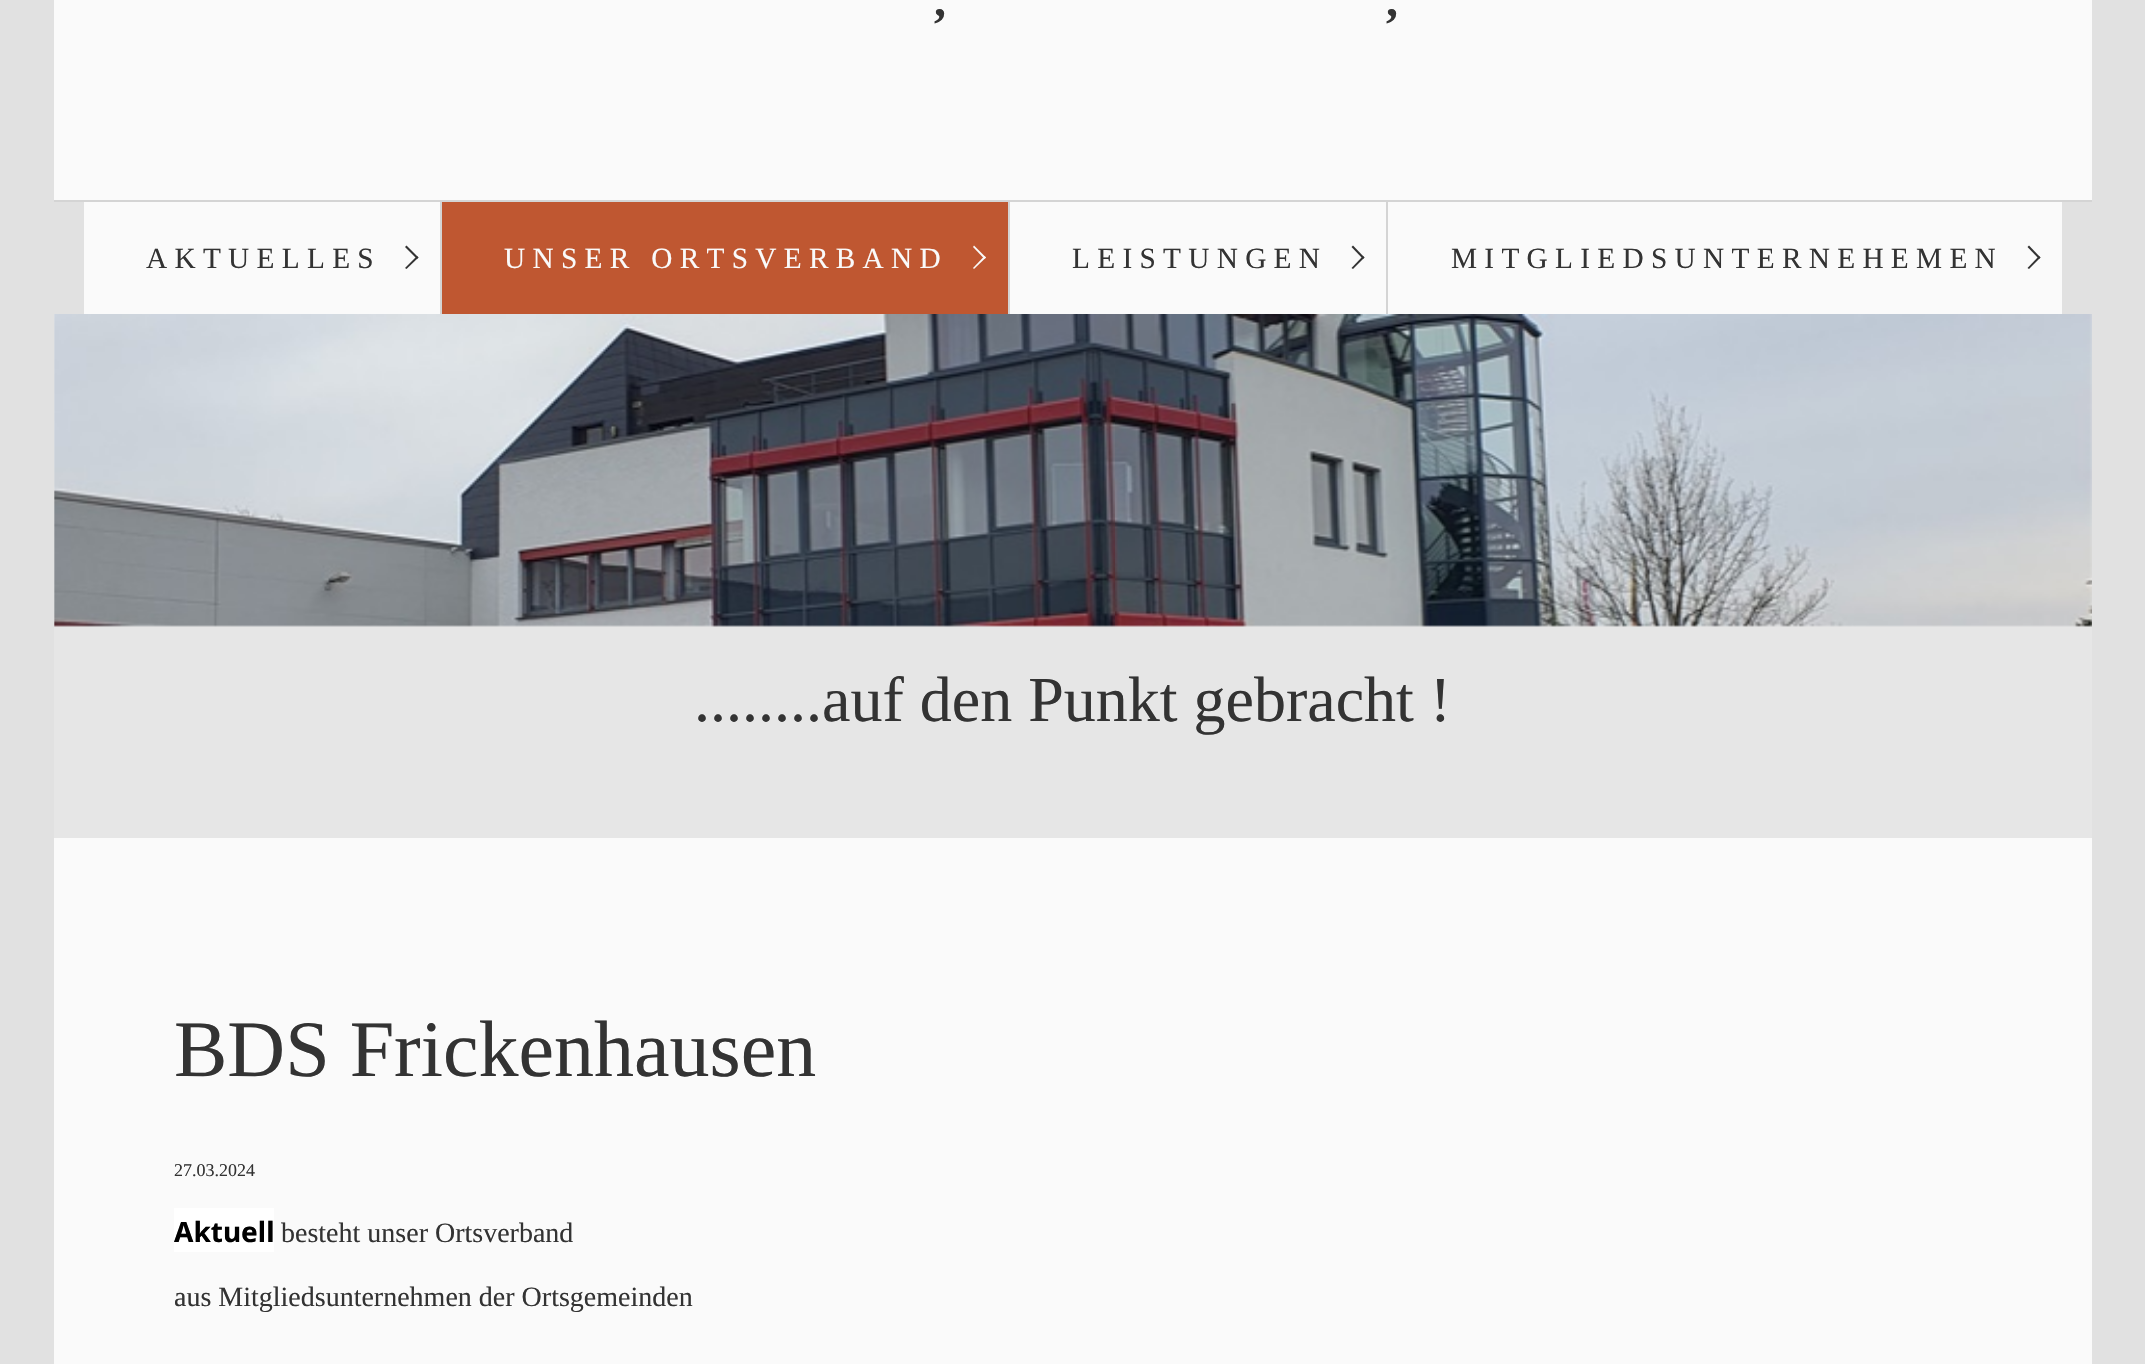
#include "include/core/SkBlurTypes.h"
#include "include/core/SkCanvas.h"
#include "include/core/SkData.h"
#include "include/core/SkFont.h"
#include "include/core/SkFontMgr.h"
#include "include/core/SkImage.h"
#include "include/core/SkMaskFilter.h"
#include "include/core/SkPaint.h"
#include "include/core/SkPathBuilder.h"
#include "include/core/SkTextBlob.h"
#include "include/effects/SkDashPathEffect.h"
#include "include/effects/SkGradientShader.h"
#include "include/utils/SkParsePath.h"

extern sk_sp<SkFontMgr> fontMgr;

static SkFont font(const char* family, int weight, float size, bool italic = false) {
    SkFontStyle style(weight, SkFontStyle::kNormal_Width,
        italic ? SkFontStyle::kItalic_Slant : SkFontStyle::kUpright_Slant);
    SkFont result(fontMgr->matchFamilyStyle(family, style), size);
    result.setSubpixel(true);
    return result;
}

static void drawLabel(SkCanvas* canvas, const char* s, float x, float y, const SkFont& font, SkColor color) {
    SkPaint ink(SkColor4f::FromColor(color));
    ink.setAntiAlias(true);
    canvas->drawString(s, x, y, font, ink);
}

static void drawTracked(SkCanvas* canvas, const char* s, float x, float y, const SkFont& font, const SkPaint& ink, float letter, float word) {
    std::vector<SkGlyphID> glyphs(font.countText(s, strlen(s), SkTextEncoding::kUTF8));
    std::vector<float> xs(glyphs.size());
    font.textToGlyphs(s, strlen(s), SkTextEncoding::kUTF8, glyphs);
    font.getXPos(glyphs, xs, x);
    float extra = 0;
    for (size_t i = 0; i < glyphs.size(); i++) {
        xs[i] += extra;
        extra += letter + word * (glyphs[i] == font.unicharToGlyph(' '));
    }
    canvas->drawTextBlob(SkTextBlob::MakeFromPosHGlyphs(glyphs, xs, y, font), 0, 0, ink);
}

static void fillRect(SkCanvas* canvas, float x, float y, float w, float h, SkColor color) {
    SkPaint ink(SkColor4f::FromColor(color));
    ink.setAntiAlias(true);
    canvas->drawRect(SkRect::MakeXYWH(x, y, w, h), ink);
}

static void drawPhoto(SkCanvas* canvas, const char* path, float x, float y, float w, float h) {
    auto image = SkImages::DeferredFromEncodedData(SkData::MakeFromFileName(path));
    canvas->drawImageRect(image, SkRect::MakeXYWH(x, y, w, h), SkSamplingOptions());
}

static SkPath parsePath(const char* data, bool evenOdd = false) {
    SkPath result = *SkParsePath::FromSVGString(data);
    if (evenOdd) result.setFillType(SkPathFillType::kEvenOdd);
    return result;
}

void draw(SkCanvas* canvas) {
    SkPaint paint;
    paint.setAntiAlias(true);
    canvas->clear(0xFFE1E1E1);
    fillRect(canvas, 54, 0, 2038, 200, 0xFFFAFAFA);
    SkFont font1 = font("Liberation Serif", 700, 48);
    paint.setColor(0xFF333333);
    drawTracked(canvas, ",", 934, 16, font1, paint, 3, 0);
    drawTracked(canvas, ",", 1386, 16, font1, paint, 3, 0);
    fillRect(canvas, 54, 200, 2038, 2, 0xFFD4D4D4);
    fillRect(canvas, 84, 202, 356, 112, 0xFFFAFAFA);
    SkFont font2 = font("Liberation Serif", 400, 29.3f);
    drawTracked(canvas, "AKTUELLES", 146, 268, font2, paint, 7.3f, 0);
    canvas->drawPath(parsePath("M406.5 245.5L418.5 257.5L417 259L405 247Z"), paint);
    canvas->drawPath(parsePath("M417 256L418.5 257.5L406.5 269L405 268Z"), paint);
    fillRect(canvas, 440, 202, 2, 112, 0xFFD4D4D4);
    fillRect(canvas, 442, 202, 566, 112, 0xFFBF5731);
    paint.setColor(0xFFFAFAFA);
    drawTracked(canvas, "UNSER ORTSVERBAND", 504, 268, font2, paint, 7.3f, 0);
    canvas->drawPath(parsePath("M974 245.5L986 257.5L984.5 259L973 247Z"), paint);
    canvas->drawPath(parsePath("M984.5 256L986 257.5L974 269L973 268Z"), paint);
    fillRect(canvas, 1008, 202, 2, 112, 0xFFD4D4D4);
    fillRect(canvas, 1010, 202, 376, 112, 0xFFFAFAFA);
    paint.setColor(0xFF333333);
    drawTracked(canvas, "LEISTUNGEN", 1072, 268, font2, paint, 7.3f, 0);
    canvas->drawPath(parsePath("M1353 245.5L1364.5 257.5L1363 259L1351.5 247Z"), paint);
    canvas->drawPath(parsePath("M1363 256L1364.5 257.5L1353 269L1351.5 268Z"), paint);
    fillRect(canvas, 1386, 202, 2, 112, 0xFFD4D4D4);
    fillRect(canvas, 1388, 202, 674, 112, 0xFFFAFAFA);
    drawTracked(canvas, "MITGLIEDSUNTERNEHEMEN", 1451, 268, font2, paint, 7.3f, 0);
    canvas->drawPath(parsePath("M2029 245.5L2040.5 257.5L2039 259L2027.5 247Z"), paint);
    canvas->drawPath(parsePath("M2039 256L2040.5 257.5L2029 269L2027.5 268Z"), paint);
    fillRect(canvas, 54, 314, 2038, 524, 0xFFE6E6E6);
    drawPhoto(canvas, "assets/img1.png", 54, 314, 2038, 313);
    SkFont font3 = font("Liberation Serif", 400, 64);
    drawLabel(canvas, "........auf den Punkt gebracht !", 694, 721, font3, 0xFF333333);
    fillRect(canvas, 54, 838, 2038, 526, 0xFFFAFAFA);
    SkFont font4 = font("Liberation Serif", 400, 80);
    drawLabel(canvas, "BDS Frickenhausen", 174, 1076, font4, 0xFF333333);
    SkFont font5 = font("Liberation Serif", 400, 18);
    drawLabel(canvas, "27.03.2024", 174, 1176, font5, 0xFF333333);
    fillRect(canvas, 174, 1208, 100, 44, 0xFFFFFFFF);
    SkFont font6 = font("Noto Sans", 700, 28);
    drawLabel(canvas, "Aktuell", 174, 1242, font6, 0xFF000000);
    SkFont font7 = font("Liberation Serif", 400, 28);
    drawLabel(canvas, "besteht unser Ortsverband", 281, 1242, font7, 0xFF333333);
    drawLabel(canvas, "aus Mitgliedsunternehmen der Ortsgemeinden", 174, 1306, font7, 0xFF333333);
}
